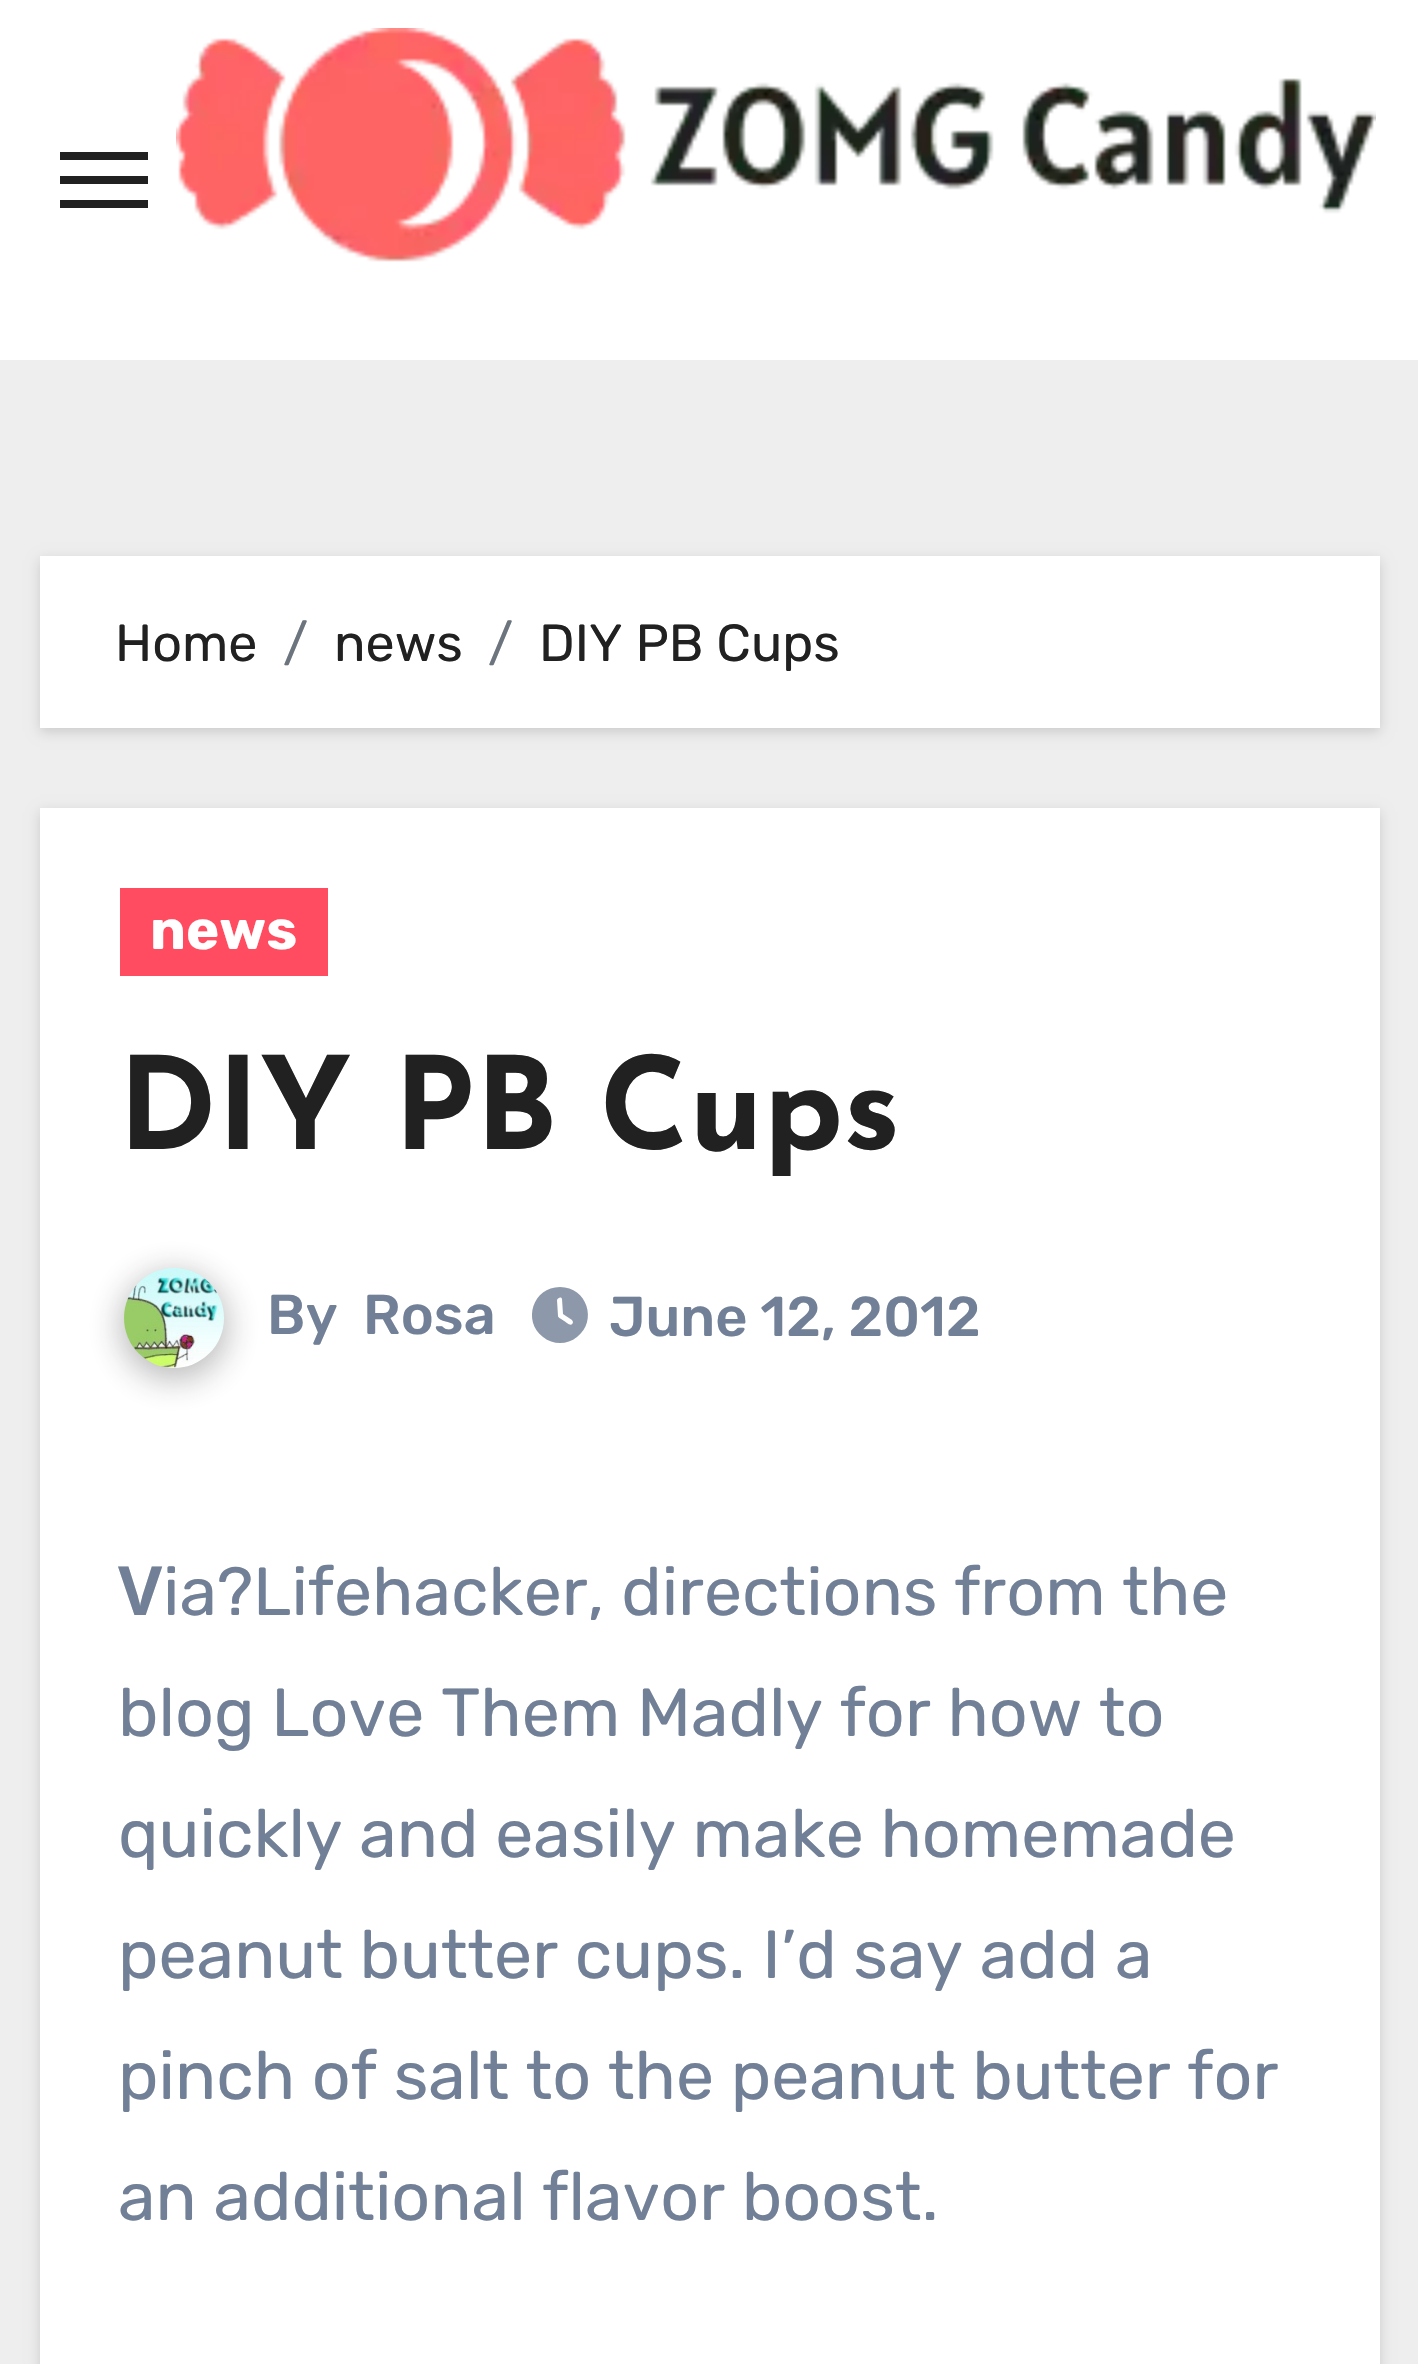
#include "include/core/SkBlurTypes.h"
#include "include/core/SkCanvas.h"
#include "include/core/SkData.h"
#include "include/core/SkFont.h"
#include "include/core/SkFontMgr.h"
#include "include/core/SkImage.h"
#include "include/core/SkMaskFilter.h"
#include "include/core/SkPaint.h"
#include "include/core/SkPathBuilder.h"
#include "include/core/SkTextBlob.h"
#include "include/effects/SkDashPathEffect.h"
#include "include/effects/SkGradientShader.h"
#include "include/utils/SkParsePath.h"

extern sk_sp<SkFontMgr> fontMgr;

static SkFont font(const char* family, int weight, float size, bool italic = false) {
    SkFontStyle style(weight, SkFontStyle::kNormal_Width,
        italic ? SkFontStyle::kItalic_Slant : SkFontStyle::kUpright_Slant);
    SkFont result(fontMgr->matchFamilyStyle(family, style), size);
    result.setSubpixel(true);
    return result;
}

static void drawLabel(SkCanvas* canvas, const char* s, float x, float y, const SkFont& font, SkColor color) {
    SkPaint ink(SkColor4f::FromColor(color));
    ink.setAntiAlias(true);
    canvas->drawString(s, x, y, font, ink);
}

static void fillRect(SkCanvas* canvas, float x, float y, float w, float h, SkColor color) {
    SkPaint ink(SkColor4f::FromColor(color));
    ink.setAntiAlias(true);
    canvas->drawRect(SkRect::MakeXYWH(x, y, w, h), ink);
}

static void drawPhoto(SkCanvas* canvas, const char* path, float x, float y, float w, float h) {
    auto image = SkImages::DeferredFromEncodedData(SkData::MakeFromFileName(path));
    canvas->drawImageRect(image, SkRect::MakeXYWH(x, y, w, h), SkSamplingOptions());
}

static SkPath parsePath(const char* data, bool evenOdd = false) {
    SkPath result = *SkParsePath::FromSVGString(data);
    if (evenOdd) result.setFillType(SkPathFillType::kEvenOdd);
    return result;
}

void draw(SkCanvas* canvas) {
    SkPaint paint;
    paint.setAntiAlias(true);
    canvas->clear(0xFFEEEEEE);
    fillRect(canvas, 0, 0, 1418, 360, 0xFFFFFFFF);
    fillRect(canvas, 60, 152, 88, 8, 0xFF212121);
    fillRect(canvas, 60, 176, 88, 8, 0xFF212121);
    fillRect(canvas, 60, 200, 88, 8, 0xFF212121);
    drawPhoto(canvas, "assets/img1.png", 176, 28, 1200, 234);
    paint.setColor(0x26000000);
    paint.setMaskFilter(SkMaskFilter::MakeBlur(kNormal_SkBlurStyle, 6));
    canvas->drawRect(SkRect::MakeXYWH(40, 560, 1340, 172), paint);
    paint.setMaskFilter(nullptr);
    fillRect(canvas, 40, 556, 1340, 172, 0xFFFFFFFF);
    SkFont font1 = font("Rubik", 300, 52);
    drawLabel(canvas, "Home", 115, 661, font1, 0xFF212121);
    drawLabel(canvas, "/", 283, 661, font1, 0xFF6C757D);
    drawLabel(canvas, "news", 334, 661, font1, 0xFF212121);
    drawLabel(canvas, "/", 488, 661, font1, 0xFF6C757D);
    drawLabel(canvas, "DIY PB Cups", 539, 661, font1, 0xFF212121);
    paint.setMaskFilter(SkMaskFilter::MakeBlur(kNormal_SkBlurStyle, 6));
    canvas->drawRect(SkRect::MakeXYWH(40, 812, 1340, 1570), paint);
    paint.setMaskFilter(nullptr);
    fillRect(canvas, 40, 808, 1340, 1556, 0xFFFFFFFF);
    fillRect(canvas, 120, 888, 208, 88, 0xFFFF4C60);
    SkFont font2 = font("Rubik", 700, 56);
    drawLabel(canvas, "news", 150, 949, font2, 0xFFFFFFFF);
    SkFont font3 = font("Josefin Sans", 700, 128);
    drawLabel(canvas, "DIY PB Cups", 118, 1149, font3, 0xFF212121);
    paint.setColor(0x4D212121);
    paint.setMaskFilter(SkMaskFilter::MakeBlur(kNormal_SkBlurStyle, 16));
    canvas->drawRoundRect(SkRect::MakeXYWH(120, 1272, 108, 108), 54, 54, paint);
    paint.setMaskFilter(nullptr);
    drawPhoto(canvas, "assets/img2.png", 124, 1268, 100, 100);
    SkFont font4 = font("Rubik", 500, 56);
    drawLabel(canvas, "By", 267, 1334, font4, 0xFF718096);
    drawLabel(canvas, "Rosa", 363, 1334, font4, 0xFF718096);
    paint.setColor(0xFF8D99AB);
    canvas->drawPath(parsePath("M560 1287C587 1287 598 1321 577 1337C572 1341 566 1343 560 1343C554 1343 548 1341 543 1337C522 1321 533 1287 560 1287ZM557 1300L558 1316C558 1318 562 1319 564 1321C566 1322 572 1328 573 1322L572 1320L563 1314L562 1299C561 1296 558 1298 557 1300Z"), paint);
    drawLabel(canvas, "June 12, 2012", 609, 1336, font4, 0xFF718096);
    SkFont font5 = font("Noto Sans", 700, 68);
    drawLabel(canvas, "V", 118, 1615, font5, 0xFF718096);
    SkFont font6 = font("Rubik", 300, 68);
    drawLabel(canvas, "ia?Lifehacker, directions from the", 163, 1615, font6, 0xFF718096);
    drawLabel(canvas, "blog Love Them Madly for how to", 118, 1736, font6, 0xFF718096);
    drawLabel(canvas, "quickly and easily make homemade", 118, 1857, font6, 0xFF718096);
    drawLabel(canvas, "peanut butter cups. I’d say add a", 118, 1978, font6, 0xFF718096);
    drawLabel(canvas, "pinch of salt to the peanut butter for", 118, 2099, font6, 0xFF718096);
    drawLabel(canvas, "an additional flavor boost.", 118, 2220, font6, 0xFF718096);
}
